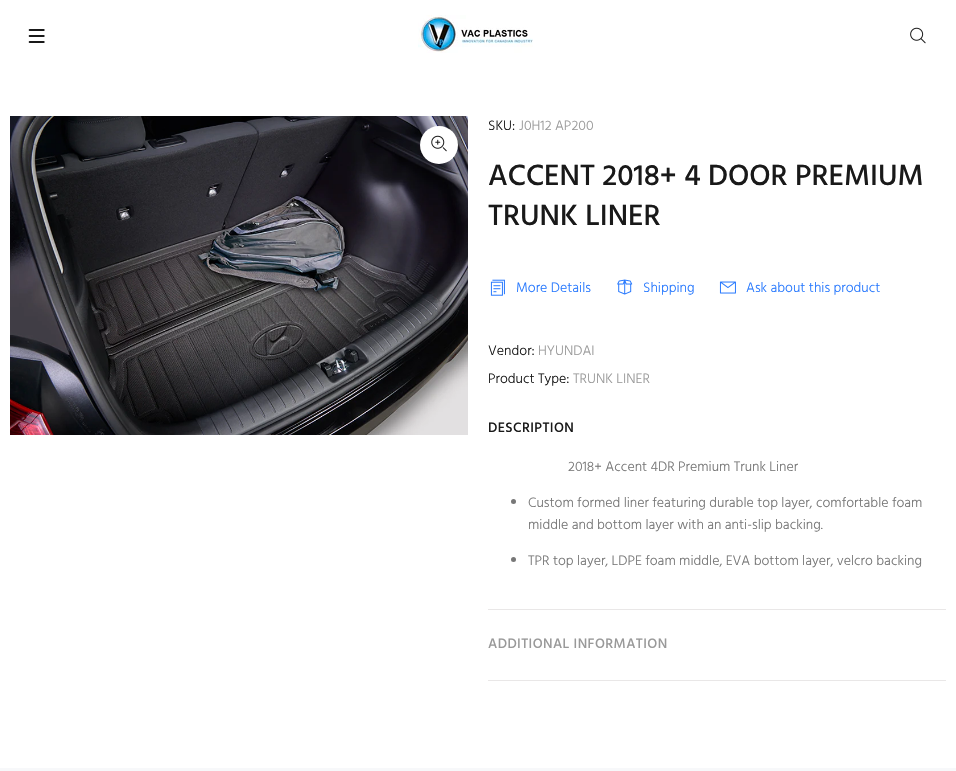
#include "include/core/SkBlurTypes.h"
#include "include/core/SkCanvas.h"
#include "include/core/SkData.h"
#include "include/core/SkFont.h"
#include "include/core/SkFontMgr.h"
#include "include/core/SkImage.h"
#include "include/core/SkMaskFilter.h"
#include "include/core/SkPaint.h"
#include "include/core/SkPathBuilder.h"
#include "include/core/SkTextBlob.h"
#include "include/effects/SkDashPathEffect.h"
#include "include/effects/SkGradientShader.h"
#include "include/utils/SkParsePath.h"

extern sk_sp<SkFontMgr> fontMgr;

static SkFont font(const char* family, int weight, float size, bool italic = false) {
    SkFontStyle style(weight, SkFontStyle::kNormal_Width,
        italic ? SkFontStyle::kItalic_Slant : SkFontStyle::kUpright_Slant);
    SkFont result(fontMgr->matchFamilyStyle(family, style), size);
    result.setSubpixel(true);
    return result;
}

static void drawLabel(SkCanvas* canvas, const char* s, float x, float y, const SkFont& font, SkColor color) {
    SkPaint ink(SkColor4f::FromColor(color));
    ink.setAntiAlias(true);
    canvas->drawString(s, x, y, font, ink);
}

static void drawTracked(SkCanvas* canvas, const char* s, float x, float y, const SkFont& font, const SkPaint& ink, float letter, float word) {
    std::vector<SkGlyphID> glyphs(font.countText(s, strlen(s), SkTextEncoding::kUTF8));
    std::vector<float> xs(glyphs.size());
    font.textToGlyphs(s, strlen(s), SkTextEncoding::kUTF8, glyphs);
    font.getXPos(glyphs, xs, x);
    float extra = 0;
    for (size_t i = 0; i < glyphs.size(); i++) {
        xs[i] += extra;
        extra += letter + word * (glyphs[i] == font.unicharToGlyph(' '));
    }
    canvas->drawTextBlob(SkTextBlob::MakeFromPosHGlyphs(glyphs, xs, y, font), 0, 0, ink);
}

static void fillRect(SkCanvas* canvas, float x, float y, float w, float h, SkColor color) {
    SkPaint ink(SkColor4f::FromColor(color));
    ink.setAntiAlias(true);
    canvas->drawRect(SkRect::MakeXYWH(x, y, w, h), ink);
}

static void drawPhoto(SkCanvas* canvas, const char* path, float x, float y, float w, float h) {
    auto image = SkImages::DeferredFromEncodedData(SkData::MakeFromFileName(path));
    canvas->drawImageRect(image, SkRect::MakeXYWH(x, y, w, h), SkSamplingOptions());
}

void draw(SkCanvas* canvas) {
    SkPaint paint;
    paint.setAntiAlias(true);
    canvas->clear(0xFFFFFFFF);
    drawPhoto(canvas, "assets/img1.png", 28, 29, 17, 14);
    drawPhoto(canvas, "assets/img2.png", 418, 15, 115, 38);
    drawPhoto(canvas, "assets/img3.png", 910, 27, 16, 17);
    drawPhoto(canvas, "assets/img4.png", 10, 116, 458, 319);
    paint.setColor(0xFFFFFFFF);
    canvas->drawCircle(439, 145, 19, paint);
    drawPhoto(canvas, "assets/img5.png", 431, 135, 16, 17);
    SkFont font1 = font("Hind", 300, 14);
    drawLabel(canvas, "SKU:", 488, 130, font1, 0xFF191919);
    drawLabel(canvas, "J0H12 AP200", 519, 130, font1, 0xFF999999);
    SkFont font2 = font("Hind", 500, 30);
    drawLabel(canvas, "ACCENT 2018+ 4 DOOR PREMIUM", 488, 185, font2, 0xFF191919);
    drawLabel(canvas, "TRUNK LINER", 488, 225, font2, 0xFF191919);
    drawPhoto(canvas, "assets/img6.png", 490, 279, 15, 17);
    drawLabel(canvas, "More Details", 516, 292, font1, 0xFF2879FE);
    drawPhoto(canvas, "assets/img7.png", 617, 279, 16, 16);
    drawLabel(canvas, "Shipping", 643, 292, font1, 0xFF2879FE);
    drawPhoto(canvas, "assets/img8.png", 719, 281, 17, 13);
    drawLabel(canvas, "Ask about this product", 746, 292, font1, 0xFF2879FE);
    drawLabel(canvas, "Vendor:", 488, 355, font1, 0xFF191919);
    drawLabel(canvas, "HYUNDAI", 538, 355, font1, 0xFF999999);
    drawLabel(canvas, "Product Type:", 488, 383, font1, 0xFF191919);
    drawLabel(canvas, "TRUNK LINER", 573, 383, font1, 0xFF999999);
    fillRect(canvas, 488, 609, 458, 1, 0xFFE9E7E7);
    SkFont font3 = font("Hind", 500, 14);
    paint.setColor(0xFF191919);
    drawTracked(canvas, "DESCRIPTION", 488, 432, font3, paint, 0.4f, 0);
    drawLabel(canvas, "2018+ Accent 4DR Premium Trunk Liner", 568, 471, font1, 0xFF777777);
    paint.setColor(0xFF777777);
    canvas->drawCircle(513.5f, 501.5f, 2.5f, paint);
    drawLabel(canvas, "Custom formed liner featuring durable top layer, comfortable foam", 528, 507, font1, 0xFF777777);
    drawLabel(canvas, "middle and bottom layer with an anti-slip backing.", 528, 529, font1, 0xFF777777);
    canvas->drawCircle(513.5f, 559.5f, 2.5f, paint);
    drawLabel(canvas, "TPR top layer, LDPE foam middle, EVA bottom layer, velcro backing", 528, 565, font1, 0xFF777777);
    fillRect(canvas, 488, 680, 458, 1, 0xFFE9E7E7);
    paint.setColor(0xFF999999);
    drawTracked(canvas, "ADDITIONAL INFORMATION", 488, 648, font3, paint, 0.4f, 0);
    fillRect(canvas, 0, 768, 956, 3, 0xFFF7F8FA);
}
